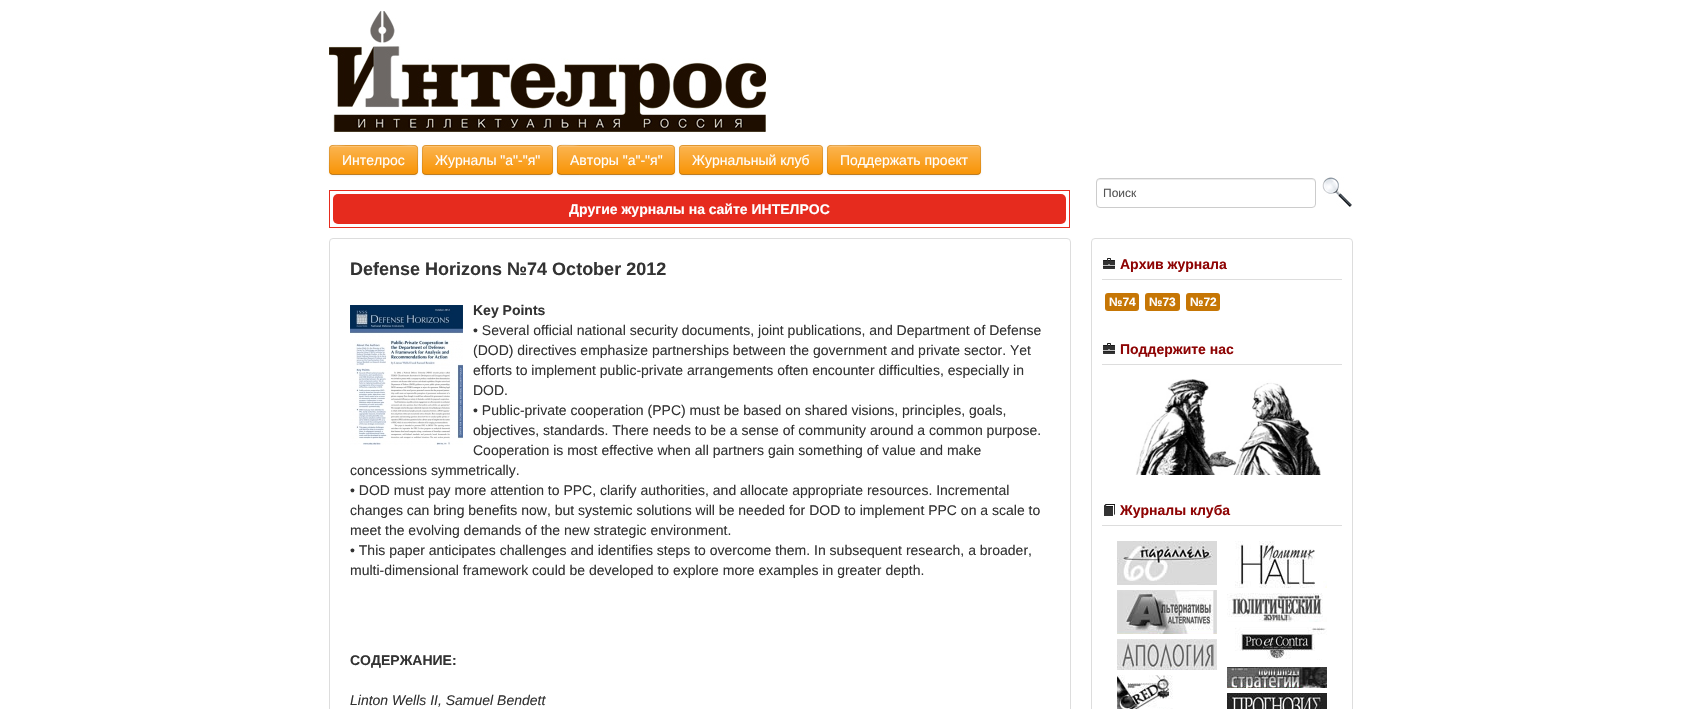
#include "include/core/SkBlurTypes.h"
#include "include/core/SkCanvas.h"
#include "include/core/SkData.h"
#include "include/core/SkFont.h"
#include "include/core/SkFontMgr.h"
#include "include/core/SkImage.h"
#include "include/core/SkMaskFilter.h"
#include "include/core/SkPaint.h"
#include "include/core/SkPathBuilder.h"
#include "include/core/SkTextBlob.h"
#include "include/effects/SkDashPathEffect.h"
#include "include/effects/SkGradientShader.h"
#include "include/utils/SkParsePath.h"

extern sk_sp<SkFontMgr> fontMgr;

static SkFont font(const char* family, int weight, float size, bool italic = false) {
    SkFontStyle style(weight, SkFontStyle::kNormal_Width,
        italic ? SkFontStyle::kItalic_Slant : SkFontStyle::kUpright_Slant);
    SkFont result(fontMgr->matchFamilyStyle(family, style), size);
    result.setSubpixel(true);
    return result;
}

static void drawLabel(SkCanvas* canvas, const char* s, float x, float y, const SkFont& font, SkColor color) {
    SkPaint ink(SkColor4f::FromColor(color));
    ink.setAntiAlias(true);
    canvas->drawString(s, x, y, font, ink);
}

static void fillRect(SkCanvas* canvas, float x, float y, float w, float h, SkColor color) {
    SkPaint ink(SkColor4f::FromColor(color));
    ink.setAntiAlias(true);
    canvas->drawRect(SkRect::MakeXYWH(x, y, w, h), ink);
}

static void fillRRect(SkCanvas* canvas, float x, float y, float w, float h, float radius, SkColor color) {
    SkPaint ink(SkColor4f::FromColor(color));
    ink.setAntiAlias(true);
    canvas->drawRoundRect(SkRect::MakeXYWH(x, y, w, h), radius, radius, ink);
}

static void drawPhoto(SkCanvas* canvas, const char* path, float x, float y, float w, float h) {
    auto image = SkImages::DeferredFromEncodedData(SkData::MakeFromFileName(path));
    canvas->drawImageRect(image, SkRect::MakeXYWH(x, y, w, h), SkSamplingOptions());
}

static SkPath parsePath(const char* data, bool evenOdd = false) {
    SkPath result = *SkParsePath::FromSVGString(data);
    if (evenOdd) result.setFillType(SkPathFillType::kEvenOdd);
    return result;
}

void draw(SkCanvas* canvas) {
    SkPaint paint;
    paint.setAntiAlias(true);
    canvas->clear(0xFFFFFFFF);
    drawPhoto(canvas, "assets/img1.png", 329, 11, 437, 121);
    paint.setColor(0x0D000000);
    paint.setMaskFilter(SkMaskFilter::MakeBlur(kNormal_SkBlurStyle, 1));
    canvas->drawRoundRect(SkRect::MakeXYWH(329, 146, 89, 30), 4, 4, paint);
    paint.setMaskFilter(nullptr);
    fillRRect(canvas, 329, 145, 89, 30, 4, 0xFFFAA732);
    canvas->save();
    canvas->clipPath(parsePath("M333 145H414C416 145 418 147 418 149V171C418 173 416 175 414 175H333C331 175 329 173 329 171V149C329 147 331 145 333 145Z"), true);
    {
        const SkColor colors[] = {0xFFFBB450, 0xFFF89406};
        const float stops[] = {0, 1};
        const SkPoint ends[] = {{374, 146}, {374, 174}};
        paint.setShader(SkGradientShader::MakeLinear(ends, colors, stops, 2, SkTileMode::kClamp));
        paint.setAlpha(255);
    }
    canvas->drawRect(SkRect::MakeXYWH(329, 146, 89, 28), paint);
    canvas->restore();
    paint.setShader(nullptr);
    paint.setColor(0x33FFFFFF);
    canvas->drawPath(parsePath("M333 147H414C416 147 417 148 417 150C417 142 404 146 400 146H346C343 146 330 142 330 150C330 148 331 147 333 147Z"), paint);
    paint.setStroke(true);
    paint.setStrokeWidth(1);
    paint.setColor(0x40000000);
    canvas->drawPath(parsePath("M416.5 173.5L414.5 174.5H332.5L330.5 173.5"), paint);
    paint.setColor(0x1A000000);
    canvas->drawPath(parsePath("M330.5 173.5C328.5 171.5 329.5 163 329.5 160C329.5 142.5 327.5 145.5 346.5 145.5H400.5C421.5 145.5 417.5 143 417.5 163.5C417.5 166.5 419 171 416.5 173.5"), paint);
    SkFont font1 = font("Liberation Sans", 400, 14);
    drawLabel(canvas, "Интелрос", 342, 165, font1, 0xFFFFFFFF);
    paint.setStroke(false);
    paint.setColor(0x0D000000);
    paint.setMaskFilter(SkMaskFilter::MakeBlur(kNormal_SkBlurStyle, 1));
    canvas->drawRoundRect(SkRect::MakeXYWH(422, 146, 131, 30), 4, 4, paint);
    paint.setMaskFilter(nullptr);
    fillRRect(canvas, 422, 145, 131, 30, 4, 0xFFFAA732);
    canvas->save();
    canvas->clipPath(parsePath("M426 145H549C551 145 553 147 553 149V171C553 173 551 175 549 175H426C424 175 422 173 422 171V149C422 147 424 145 426 145Z"), true);
    {
        const SkColor colors[] = {0xFFFBB450, 0xFFF89406};
        const float stops[] = {0, 1};
        const SkPoint ends[] = {{488, 146}, {488, 174}};
        paint.setShader(SkGradientShader::MakeLinear(ends, colors, stops, 2, SkTileMode::kClamp));
        paint.setAlpha(255);
    }
    canvas->drawRect(SkRect::MakeXYWH(422, 146, 131, 28), paint);
    canvas->restore();
    paint.setShader(nullptr);
    paint.setColor(0x33FFFFFF);
    canvas->drawPath(parsePath("M426 147H549C551 147 552 148 552 150C552 148 552 146 550 146H426C424 146 423 148 423 150C423 148 424 147 426 147Z"), paint);
    paint.setStroke(true);
    paint.setColor(0x40000000);
    canvas->drawPath(parsePath("M551.5 173.5C551 174 550 174.5 549 174.5H426C425 174.5 424 174 423.5 173.5"), paint);
    paint.setColor(0x1A000000);
    canvas->drawPath(parsePath("M423.5 173.5C421.5 171.5 422.5 163 422.5 160V152.5C422.5 150 422 145.5 426 145.5H549C553 145.5 552.5 150 552.5 152.5V160C552.5 163 553.5 171.5 551.5 173.5"), paint);
    drawLabel(canvas, "Журналы \"а\"-\"я\"", 435, 165, font1, 0xFFFFFFFF);
    paint.setStroke(false);
    paint.setColor(0x0D000000);
    paint.setMaskFilter(SkMaskFilter::MakeBlur(kNormal_SkBlurStyle, 1));
    canvas->drawRoundRect(SkRect::MakeXYWH(557, 146, 118, 30), 4, 4, paint);
    paint.setMaskFilter(nullptr);
    fillRRect(canvas, 557, 145, 118, 30, 4, 0xFFFAA732);
    canvas->save();
    canvas->clipPath(parsePath("M561 145H671C673 145 675 147 675 149V171C675 173 673 175 671 175H561C559 175 557 173 557 171V149C557 147 559 145 561 145Z"), true);
    {
        const SkColor colors[] = {0xFFFBB450, 0xFFF89406};
        const float stops[] = {0, 1};
        const SkPoint ends[] = {{616, 146}, {616, 174}};
        paint.setShader(SkGradientShader::MakeLinear(ends, colors, stops, 2, SkTileMode::kClamp));
        paint.setAlpha(255);
    }
    canvas->drawRect(SkRect::MakeXYWH(557, 146, 118, 28), paint);
    canvas->restore();
    paint.setShader(nullptr);
    paint.setColor(0x33FFFFFF);
    canvas->drawPath(parsePath("M561 147H671C673 147 674 148 674 150C674 148 673 146 671 146H579C578 146 558 141 558 150C558 148 559 147 561 147Z"), paint);
    paint.setStroke(true);
    paint.setColor(0x40000000);
    canvas->drawPath(parsePath("M673.5 173.5L671.5 174.5H579.5H561L558.5 173.5"), paint);
    paint.setColor(0x1A000000);
    canvas->drawPath(parsePath("M558.5 173.5C556 171 557.5 166.5 557.5 163.5C557.5 141 554 145.5 579.5 145.5H652.5C678 145.5 674.5 141 674.5 163.5C674.5 166.5 676 171 673.5 173.5"), paint);
    drawLabel(canvas, "Авторы \"а\"-\"я\"", 570, 165, font1, 0xFFFFFFFF);
    paint.setStroke(false);
    paint.setColor(0x0D000000);
    paint.setMaskFilter(SkMaskFilter::MakeBlur(kNormal_SkBlurStyle, 1));
    canvas->drawRoundRect(SkRect::MakeXYWH(679, 146, 144, 30), 4, 4, paint);
    paint.setMaskFilter(nullptr);
    fillRRect(canvas, 679, 145, 144, 30, 4, 0xFFFAA732);
    canvas->save();
    canvas->clipPath(parsePath("M683 145H819C821 145 823 147 823 149V171C823 173 821 175 819 175H683C681 175 679 173 679 171V149C679 147 681 145 683 145Z"), true);
    {
        const SkColor colors[] = {0xFFFBB450, 0xFFF89406};
        const float stops[] = {0, 1};
        const SkPoint ends[] = {{751, 146}, {751, 174}};
        paint.setShader(SkGradientShader::MakeLinear(ends, colors, stops, 2, SkTileMode::kClamp));
        paint.setAlpha(255);
    }
    canvas->drawRect(SkRect::MakeXYWH(679, 146, 144, 28), paint);
    canvas->restore();
    paint.setShader(nullptr);
    paint.setColor(0x33FFFFFF);
    canvas->drawPath(parsePath("M683 147H819C821 147 822 148 822 150V149C822 147 821 146 819 146H683C681 146 680 147 680 149V150C680 148 681 147 683 147Z"), paint);
    paint.setStroke(true);
    paint.setColor(0x40000000);
    canvas->drawPath(parsePath("M821.5 173.5C821 174 820 174.5 819 174.5H683C682 174.5 681 174 680.5 173.5"), paint);
    paint.setColor(0x1A000000);
    canvas->drawPath(parsePath("M680.5 173.5C678.5 171.5 679.5 163 679.5 160V152.5C679.5 150 679 145.5 683 145.5H819C823 145.5 822.5 150 822.5 152.5V160C822.5 163 823.5 171.5 821.5 173.5"), paint);
    drawLabel(canvas, "Журнальный клуб", 692, 165, font1, 0xFFFFFFFF);
    paint.setStroke(false);
    paint.setColor(0x0D000000);
    paint.setMaskFilter(SkMaskFilter::MakeBlur(kNormal_SkBlurStyle, 1));
    canvas->drawRoundRect(SkRect::MakeXYWH(827, 146, 154, 30), 4, 4, paint);
    paint.setMaskFilter(nullptr);
    fillRRect(canvas, 827, 145, 154, 30, 4, 0xFFFAA732);
    canvas->save();
    canvas->clipPath(parsePath("M831 145H977C979 145 981 147 981 149V171C981 173 979 175 977 175H831C829 175 827 173 827 171V149C827 147 829 145 831 145Z"), true);
    {
        const SkColor colors[] = {0xFFFBB450, 0xFFF89406};
        const float stops[] = {0, 1};
        const SkPoint ends[] = {{904, 146}, {904, 174}};
        paint.setShader(SkGradientShader::MakeLinear(ends, colors, stops, 2, SkTileMode::kClamp));
        paint.setAlpha(255);
    }
    canvas->drawRect(SkRect::MakeXYWH(827, 146, 154, 28), paint);
    canvas->restore();
    paint.setShader(nullptr);
    paint.setColor(0x33FFFFFF);
    canvas->drawPath(parsePath("M831 147H977C979 147 980 148 980 150C980 148 980 147 978 146H855C848 146 828 141 828 150C828 148 829 147 831 147Z"), paint);
    paint.setStroke(true);
    paint.setColor(0x40000000);
    canvas->drawPath(parsePath("M979.5 173.5C979 174 978 174.5 977 174.5H831C830 174.5 829 174 828.5 173.5"), paint);
    paint.setColor(0x1A000000);
    canvas->drawPath(parsePath("M828.5 173.5C826.5 171.5 827.5 163 827.5 160V152.5C827.5 150 827 145.5 831 145.5H977C981 145.5 980.5 150 980.5 152.5V160C980.5 163 981.5 171.5 979.5 173.5"), paint);
    drawLabel(canvas, "Поддержать проект", 840, 165, font1, 0xFFFFFFFF);
    paint.setStroke(false);
    paint.setColor(0xFFECECEC);
    canvas->drawPath(parsePath("M1100 180H1312C1314 180 1315 181 1315 183V182C1315 180 1314 179 1312 179H1100C1098 179 1097 180 1097 182V183C1097 181 1098 180 1100 180Z"), paint);
    paint.setStroke(true);
    paint.setColor(0xFFCCCCCC);
    canvas->drawRoundRect(SkRect::MakeXYWH(1096.5f, 178.5f, 219, 29), 3.5f, 3.5f, paint);
    SkFont font2 = font("Liberation Sans", 400, 12);
    drawLabel(canvas, "Поиск", 1103, 197, font2, 0xFF555555);
    drawPhoto(canvas, "assets/img2.png", 1322, 177, 30, 30);
    paint.setColor(0xFFE62B1E);
    canvas->drawRect(SkRect::MakeXYWH(329.5f, 190.5f, 740, 37), paint);
    fillRRect(canvas, 333, 194, 733, 30, 5, 0xFFE62B1E);
    SkFont font3 = font("Liberation Sans", 700, 14);
    drawLabel(canvas, "Другие журналы на сайте ИНТЕЛРОС", 569, 214, font3, 0xFFFFFFFF);
    paint.setColor(0xFFDDDDDD);
    canvas->drawRoundRect(SkRect::MakeXYWH(329.5f, 238.5f, 741, 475), 3.5f, 3.5f, paint);
    SkFont font4 = font("Liberation Sans", 700, 18);
    drawLabel(canvas, "Defense Horizons №74 October 2012", 350, 275, font4, 0xFF333333);
    drawPhoto(canvas, "assets/img3.png", 350, 305, 113, 140);
    drawLabel(canvas, "Key Points", 473, 315, font3, 0xFF333333);
    drawLabel(canvas, "• Several official national security documents, joint publications, and Department of Defense", 473, 335, font1, 0xFF333333);
    drawLabel(canvas, "(DOD) directives emphasize partnerships between the government and private sector. Yet", 473, 355, font1, 0xFF333333);
    drawLabel(canvas, "efforts to implement public-private arrangements often encounter difficulties, especially in", 473, 375, font1, 0xFF333333);
    drawLabel(canvas, "DOD.", 473, 395, font1, 0xFF333333);
    drawLabel(canvas, "• Public-private cooperation (PPC) must be based on shared visions, principles, goals,", 473, 415, font1, 0xFF333333);
    drawLabel(canvas, "objectives, standards. There needs to be a sense of community around a common purpose.", 473, 435, font1, 0xFF333333);
    drawLabel(canvas, "Cooperation is most effective when all partners gain something of value and make", 473, 455, font1, 0xFF333333);
    drawLabel(canvas, "concessions symmetrically.", 350, 475, font1, 0xFF333333);
    drawLabel(canvas, "• DOD must pay more attention to PPC, clarify authorities, and allocate appropriate resources. Incremental", 350, 495, font1, 0xFF333333);
    drawLabel(canvas, "changes can bring benefits now, but systemic solutions will be needed for DOD to implement PPC on a scale to", 350, 515, font1, 0xFF333333);
    drawLabel(canvas, "meet the evolving demands of the new strategic environment.", 350, 535, font1, 0xFF333333);
    drawLabel(canvas, "• This paper anticipates challenges and identifies steps to overcome them. In subsequent research, a broader,", 350, 555, font1, 0xFF333333);
    drawLabel(canvas, "multi-dimensional framework could be developed to explore more examples in greater depth.", 350, 575, font1, 0xFF333333);
    drawLabel(canvas, "СОДЕРЖАНИЕ:", 350, 665, font3, 0xFF333333);
    SkFont font5 = font("Liberation Sans", 400, 14, true);
    drawLabel(canvas, "Linton Wells II, Samuel Bendett", 350, 705, font5, 0xFF333333);
    canvas->drawRoundRect(SkRect::MakeXYWH(1091.5f, 238.5f, 261, 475), 3.5f, 3.5f, paint);
    fillRect(canvas, 1102, 279, 240, 1, 0xFFDDDDDD);
    drawPhoto(canvas, "assets/img4.png", 1103, 258, 12, 11);
    drawLabel(canvas, "Архив журнала", 1120, 269, font3, 0xFF8E0404);
    fillRRect(canvas, 1105, 293, 34, 18, 3, 0xFFC67605);
    SkFont font6 = font("Liberation Sans", 700, 12);
    drawLabel(canvas, "№74", 1109, 306, font6, 0xFFFFFFFF);
    fillRRect(canvas, 1145, 293, 35, 18, 3, 0xFFC67605);
    drawLabel(canvas, "№73", 1149, 306, font6, 0xFFFFFFFF);
    fillRRect(canvas, 1186, 293, 34, 18, 3, 0xFFC67605);
    drawLabel(canvas, "№72", 1190, 306, font6, 0xFFFFFFFF);
    fillRect(canvas, 1102, 364, 240, 1, 0xFFDDDDDD);
    drawPhoto(canvas, "assets/img4.png", 1103, 343, 12, 11);
    drawLabel(canvas, "Поддержите нас", 1120, 354, font3, 0xFF8E0404);
    drawPhoto(canvas, "assets/img5.png", 1135, 379, 186, 96);
    fillRect(canvas, 1102, 525, 240, 1, 0xFFDDDDDD);
    drawPhoto(canvas, "assets/img6.png", 1104, 504, 11, 12);
    drawLabel(canvas, "Журналы клуба", 1120, 515, font3, 0xFF8E0404);
    drawPhoto(canvas, "assets/img7.png", 1117, 541, 100, 44);
    drawPhoto(canvas, "assets/img8.png", 1117, 590, 100, 44);
    drawPhoto(canvas, "assets/img9.png", 1117, 639, 100, 31);
    drawPhoto(canvas, "assets/img10.png", 1117, 675, 56, 34);
    drawPhoto(canvas, "assets/img11.png", 1235, 541, 92, 47);
    drawPhoto(canvas, "assets/img12.png", 1227, 593, 100, 29);
    drawPhoto(canvas, "assets/img13.png", 1235, 627, 92, 33);
    drawPhoto(canvas, "assets/img14.png", 1227, 667, 100, 21);
    drawPhoto(canvas, "assets/img15.png", 1227, 693, 100, 16);
}
